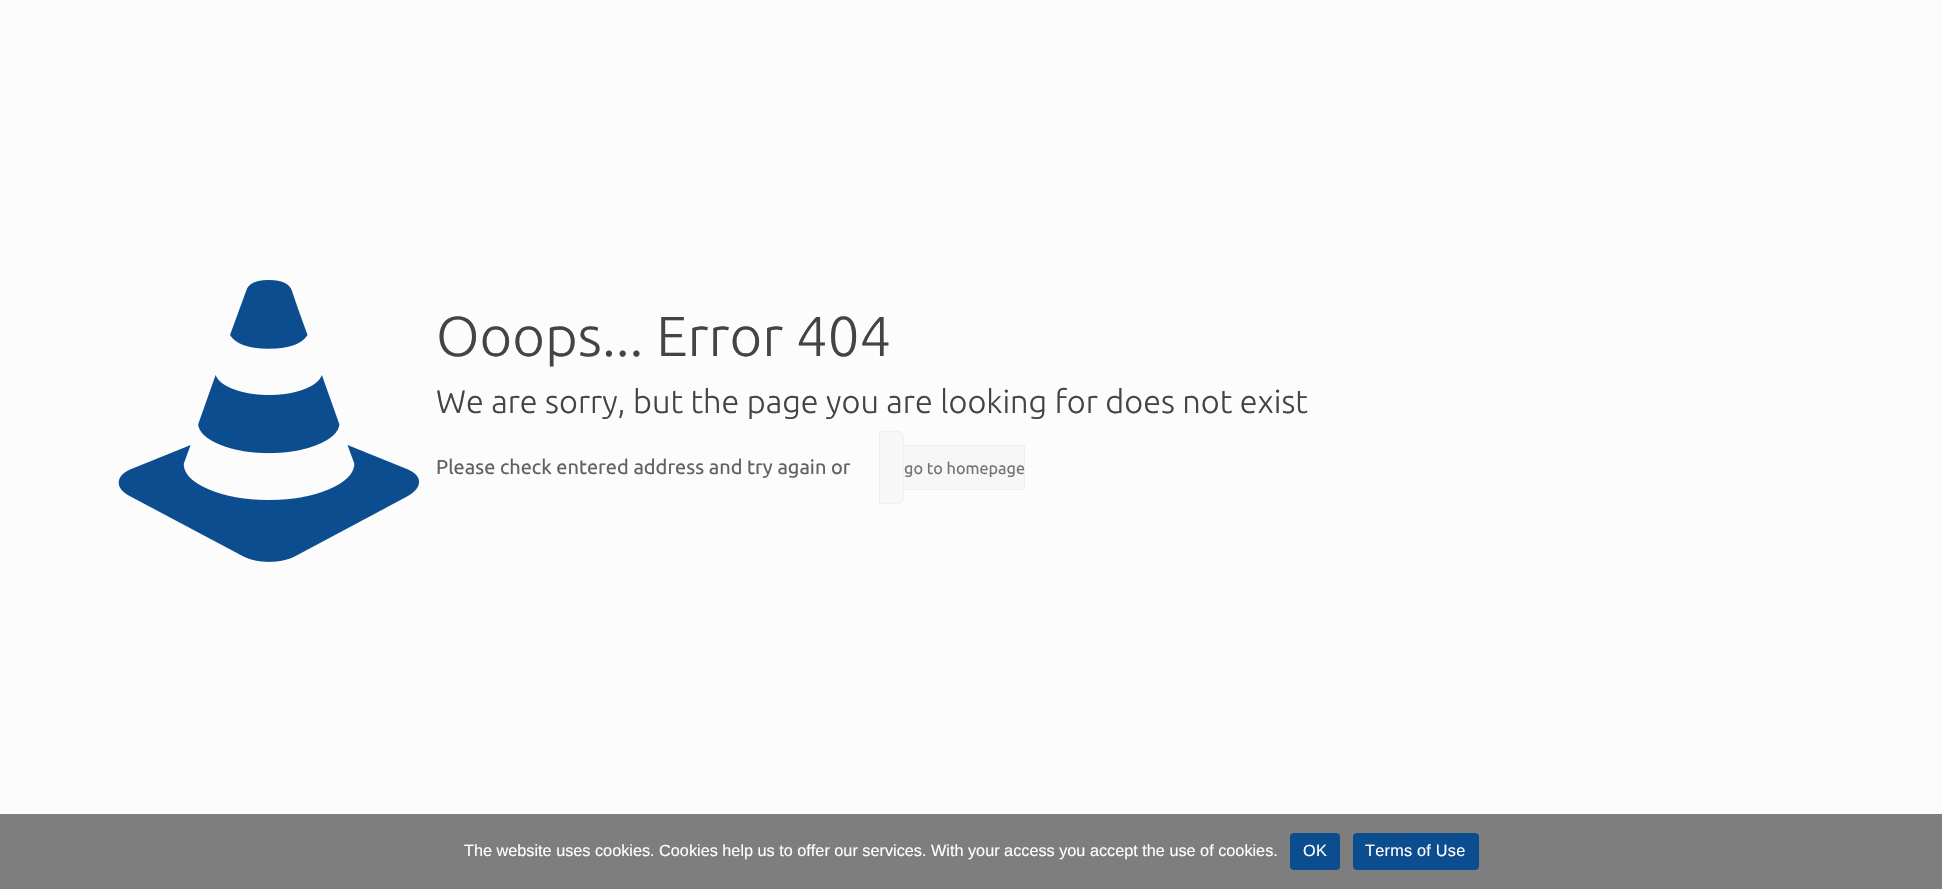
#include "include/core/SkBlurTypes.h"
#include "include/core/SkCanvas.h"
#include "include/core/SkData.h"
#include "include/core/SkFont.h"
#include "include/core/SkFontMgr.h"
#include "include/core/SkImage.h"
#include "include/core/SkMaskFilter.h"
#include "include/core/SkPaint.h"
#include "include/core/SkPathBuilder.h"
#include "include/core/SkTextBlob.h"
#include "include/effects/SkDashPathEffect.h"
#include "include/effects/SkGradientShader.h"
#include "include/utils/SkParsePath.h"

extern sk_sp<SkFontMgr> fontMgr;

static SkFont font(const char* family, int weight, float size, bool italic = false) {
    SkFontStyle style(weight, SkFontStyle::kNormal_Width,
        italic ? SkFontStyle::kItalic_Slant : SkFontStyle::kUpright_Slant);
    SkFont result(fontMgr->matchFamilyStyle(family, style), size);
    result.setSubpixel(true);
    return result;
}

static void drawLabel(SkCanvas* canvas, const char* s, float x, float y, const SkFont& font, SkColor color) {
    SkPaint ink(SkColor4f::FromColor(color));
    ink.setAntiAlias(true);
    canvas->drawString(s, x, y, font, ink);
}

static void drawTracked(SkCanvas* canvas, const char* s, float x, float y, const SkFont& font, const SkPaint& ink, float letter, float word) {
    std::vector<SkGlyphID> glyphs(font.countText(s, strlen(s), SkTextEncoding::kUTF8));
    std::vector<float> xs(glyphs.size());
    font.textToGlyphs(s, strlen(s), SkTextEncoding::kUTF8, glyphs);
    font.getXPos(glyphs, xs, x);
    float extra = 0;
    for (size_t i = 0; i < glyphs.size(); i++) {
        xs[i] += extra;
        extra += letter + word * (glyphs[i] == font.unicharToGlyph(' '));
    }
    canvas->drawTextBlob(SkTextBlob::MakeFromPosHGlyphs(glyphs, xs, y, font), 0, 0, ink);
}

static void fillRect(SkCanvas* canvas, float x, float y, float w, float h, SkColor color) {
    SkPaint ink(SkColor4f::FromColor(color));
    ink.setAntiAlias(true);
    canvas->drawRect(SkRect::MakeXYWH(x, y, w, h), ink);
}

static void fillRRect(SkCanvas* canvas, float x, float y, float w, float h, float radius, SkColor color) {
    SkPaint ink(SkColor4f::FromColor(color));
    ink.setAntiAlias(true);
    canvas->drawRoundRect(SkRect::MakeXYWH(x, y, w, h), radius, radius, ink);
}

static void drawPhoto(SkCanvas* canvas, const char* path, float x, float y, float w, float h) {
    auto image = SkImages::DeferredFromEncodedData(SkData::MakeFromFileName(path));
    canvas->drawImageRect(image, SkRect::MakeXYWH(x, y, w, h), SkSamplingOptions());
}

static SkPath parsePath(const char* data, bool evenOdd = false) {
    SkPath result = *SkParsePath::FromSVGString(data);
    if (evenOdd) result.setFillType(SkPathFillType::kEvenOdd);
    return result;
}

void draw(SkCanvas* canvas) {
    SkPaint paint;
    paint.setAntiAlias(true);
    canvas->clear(0xFFFCFCFC);
    drawPhoto(canvas, "assets/img1.png", 118, 280, 302, 282);
    SkFont font1 = font("Ubuntu", 300, 56.25f);
    drawLabel(canvas, "Ooops... Error 404", 436, 356, font1, 0xFF444444);
    SkFont font2 = font("Ubuntu", 300, 32.5f);
    drawLabel(canvas, "We are sorry, but the page you are looking for does not exist", 436, 413, font2, 0xFF444444);
    SkFont font3 = font("Ubuntu", 400, 20);
    drawLabel(canvas, "Please check entered address and try again or", 436, 474, font3, 0xFF626262);
    fillRect(canvas, 904, 446, 120, 43, 0xFFF7F7F7);
    paint.setStroke(true);
    paint.setStrokeWidth(1);
    paint.setColor(0xFFF0F0F0);
    canvas->drawRect(SkRect::MakeXYWH(879.5f, 445.5f, 145, 44), paint);
    SkFont font4 = font("Ubuntu", 400, 16.25f);
    drawLabel(canvas, "go to homepage", 904, 474, font4, 0xFF747474);
    paint.setStroke(false);
    paint.setColor(0xFFF7F7F7);
    canvas->drawPath(parsePath("M879.5 431.5H898C901 431.5 903.5 434 903.5 437V498C903.5 501 901 503.5 898 503.5H879.5Z"), paint);
    paint.setStroke(true);
    paint.setColor(0xFFF0F0F0);
    canvas->drawPath(parsePath("M879.5 431.5H898C901 431.5 903.5 434 903.5 437V498C903.5 501 901 503.5 898 503.5H879.5Z"), paint);
    fillRect(canvas, 0, 814, 1942, 75, 0xFF7E7E7E);
    SkFont font5 = font("Liberation Sans", 400, 16.25f);
    drawLabel(canvas, "The website uses cookies. Cookies help us to offer our services. With your access you accept the use of cookies.", 464, 856, font5, 0xFFFFFFFF);
    fillRRect(canvas, 1290, 833, 50, 37, 4, 0xFF0C4D8F);
    paint.setStroke(false);
    paint.setColor(0xFFFFFFFF);
    drawTracked(canvas, "OK", 1303, 856, font5, paint, 0.25f, 0);
    fillRRect(canvas, 1353, 833, 126, 37, 4, 0xFF0C4D8F);
    drawTracked(canvas, "Terms of Use", 1365, 856, font5, paint, 0.25f, 0);
}
